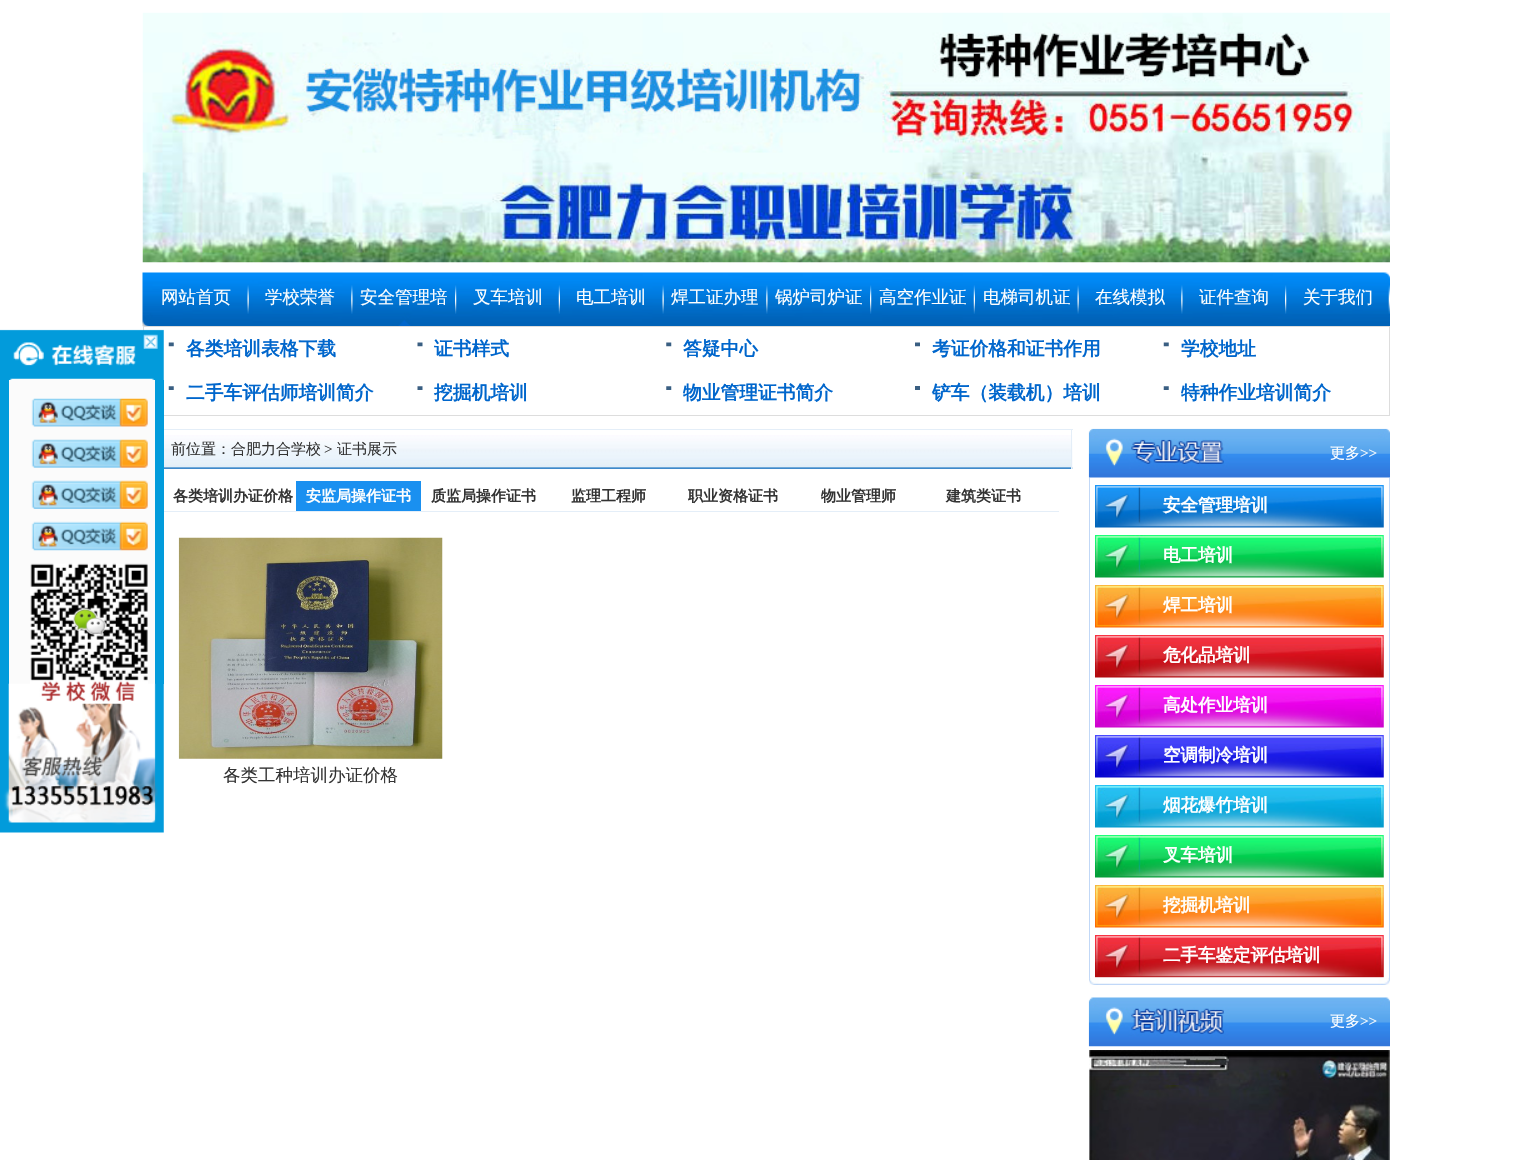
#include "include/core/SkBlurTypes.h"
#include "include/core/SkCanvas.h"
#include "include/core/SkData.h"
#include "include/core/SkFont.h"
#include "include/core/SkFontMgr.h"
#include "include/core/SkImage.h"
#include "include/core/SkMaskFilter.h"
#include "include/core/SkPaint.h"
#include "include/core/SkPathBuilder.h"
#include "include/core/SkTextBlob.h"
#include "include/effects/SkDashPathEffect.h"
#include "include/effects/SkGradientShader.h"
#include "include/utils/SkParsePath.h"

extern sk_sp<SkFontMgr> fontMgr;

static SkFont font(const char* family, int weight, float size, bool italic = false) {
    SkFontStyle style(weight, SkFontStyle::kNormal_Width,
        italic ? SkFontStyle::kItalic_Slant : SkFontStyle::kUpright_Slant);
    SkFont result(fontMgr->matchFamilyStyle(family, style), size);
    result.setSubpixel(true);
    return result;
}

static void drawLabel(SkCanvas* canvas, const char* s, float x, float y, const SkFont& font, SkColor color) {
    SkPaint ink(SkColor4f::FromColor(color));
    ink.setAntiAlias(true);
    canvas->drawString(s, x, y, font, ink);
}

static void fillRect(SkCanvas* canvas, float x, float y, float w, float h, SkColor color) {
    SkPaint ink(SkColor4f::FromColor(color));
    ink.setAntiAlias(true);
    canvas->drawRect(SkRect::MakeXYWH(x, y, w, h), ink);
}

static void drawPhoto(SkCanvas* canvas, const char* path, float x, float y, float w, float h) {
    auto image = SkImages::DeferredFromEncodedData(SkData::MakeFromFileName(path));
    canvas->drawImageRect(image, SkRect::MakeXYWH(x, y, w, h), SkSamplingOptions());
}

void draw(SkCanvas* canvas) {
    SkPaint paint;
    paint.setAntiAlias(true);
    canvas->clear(0xFFFFFFFF);
    drawPhoto(canvas, "assets/img1.png", 142, 12, 1248, 251);
    drawPhoto(canvas, "assets/img2.png", 142, 272, 1248, 55);
    drawPhoto(canvas, "assets/img3.png", 247, 285, 2, 29);
    SkFont font1 = font("WenQuanYi Zen Hei", 500, 17.5f);
    drawLabel(canvas, "网站首页", 161, 303, font1, 0xFFFFFFFF);
    drawPhoto(canvas, "assets/img4.png", 351, 285, 2, 29);
    drawLabel(canvas, "学校荣誉", 265, 303, font1, 0xFFFFFFFF);
    drawPhoto(canvas, "assets/img5.png", 455, 285, 2, 29);
    drawLabel(canvas, "安全管理培", 360, 303, font1, 0xFFFFFFFF);
    drawPhoto(canvas, "assets/img6.png", 558, 285, 2, 29);
    drawLabel(canvas, "叉车培训", 473, 303, font1, 0xFFFFFFFF);
    drawPhoto(canvas, "assets/img7.png", 662, 285, 2, 29);
    drawLabel(canvas, "电工培训", 576, 303, font1, 0xFFFFFFFF);
    drawPhoto(canvas, "assets/img8.png", 766, 285, 2, 29);
    drawLabel(canvas, "焊工证办理", 671, 303, font1, 0xFFFFFFFF);
    drawPhoto(canvas, "assets/img9.png", 870, 285, 2, 29);
    drawLabel(canvas, "锅炉司炉证", 775, 303, font1, 0xFFFFFFFF);
    drawPhoto(canvas, "assets/img10.png", 973, 285, 2, 29);
    drawLabel(canvas, "高空作业证", 879, 303, font1, 0xFFFFFFFF);
    drawPhoto(canvas, "assets/img11.png", 1077, 285, 2, 29);
    drawLabel(canvas, "电梯司机证", 983, 303, font1, 0xFFFFFFFF);
    drawPhoto(canvas, "assets/img12.png", 1181, 285, 2, 29);
    drawLabel(canvas, "在线模拟", 1095, 303, font1, 0xFFFFFFFF);
    drawPhoto(canvas, "assets/img13.png", 1285, 285, 2, 29);
    drawLabel(canvas, "证件查询", 1199, 303, font1, 0xFFFFFFFF);
    drawPhoto(canvas, "assets/img14.png", 1388, 285, 2, 29);
    drawLabel(canvas, "关于我们", 1303, 303, font1, 0xFFFFFFFF);
    paint.setStroke(true);
    paint.setStrokeWidth(1);
    paint.setColor(0xFFDDDDDD);
    canvas->drawRect(SkRect::MakeXYWH(143.5f, 326.5f, 1246, 89), paint);
    drawPhoto(canvas, "assets/img15.png", 168, 342, 6, 5);
    SkFont font2 = font("WenQuanYi Zen Hei", 700, 18.75f);
    drawLabel(canvas, "各类培训表格下载", 186, 355, font2, 0xFF0066CC);
    drawPhoto(canvas, "assets/img16.png", 417, 342, 6, 5);
    drawLabel(canvas, "证书样式", 434, 355, font2, 0xFF0066CC);
    drawPhoto(canvas, "assets/img17.png", 666, 342, 6, 5);
    drawLabel(canvas, "答疑中心", 683, 355, font2, 0xFF0066CC);
    drawPhoto(canvas, "assets/img18.png", 915, 342, 5, 5);
    drawLabel(canvas, "考证价格和证书作用", 932, 355, font2, 0xFF0066CC);
    drawPhoto(canvas, "assets/img15.png", 1163, 342, 6, 5);
    drawLabel(canvas, "学校地址", 1181, 355, font2, 0xFF0066CC);
    drawPhoto(canvas, "assets/img19.png", 168, 386, 6, 4);
    drawLabel(canvas, "二手车评估师培训简介", 186, 399, font2, 0xFF0066CC);
    drawPhoto(canvas, "assets/img20.png", 417, 386, 6, 4);
    drawLabel(canvas, "挖掘机培训", 434, 399, font2, 0xFF0066CC);
    drawPhoto(canvas, "assets/img21.png", 666, 386, 6, 4);
    drawLabel(canvas, "物业管理证书简介", 683, 399, font2, 0xFF0066CC);
    fillRect(canvas, 915, 386, 5, 4, 0xFF3A5F82);
    drawLabel(canvas, "铲车（装载机）培训", 932, 399, font2, 0xFF0066CC);
    drawPhoto(canvas, "assets/img19.png", 1163, 386, 6, 4);
    drawLabel(canvas, "特种作业培训简介", 1181, 399, font2, 0xFF0066CC);
    drawPhoto(canvas, "assets/img22.png", 0, 329, 164, 51);
    drawPhoto(canvas, "assets/img23.png", 143, 334, 15, 15);
    fillRect(canvas, 9, 380, 146, 304, 0xFFFBFBFB);
    fillRect(canvas, 156, 511, 903, 1, 0xFFE4EEF8);
    fillRect(canvas, 155, 380, 9, 304, 0xFF029BDB);
    fillRect(canvas, 0, 380, 9, 304, 0xFF029BDB);
    drawPhoto(canvas, "assets/img24.png", 31, 398, 117, 29);
    drawPhoto(canvas, "assets/img25.png", 31, 439, 117, 29);
    drawPhoto(canvas, "assets/img26.png", 31, 480, 117, 29);
    drawPhoto(canvas, "assets/img27.png", 31, 521, 117, 30);
    drawPhoto(canvas, "assets/img29.png", 0, 683, 164, 150);
    drawPhoto(canvas, "assets/img28.png", 30, 563, 118, 141);
    drawPhoto(canvas, "assets/img30.png", 164, 435, 909, 34);
    fillRect(canvas, 164, 429, 909, 1, 0xFFE4EEF8);
    fillRect(canvas, 1071, 429, 1, 40, 0xFFE4EEF8);
    SkFont font3 = font("WenQuanYi Zen Hei", 500, 15);
    drawLabel(canvas, "前位置：", 171, 454, font3, 0xFF333333);
    drawLabel(canvas, "合肥力合学校", 231, 454, font3, 0xFF333333);
    SkFont font4 = font("Liberation Serif", 400, 15);
    drawLabel(canvas, ">", 324, 454, font4, 0xFF333333);
    drawLabel(canvas, "证书展示", 337, 454, font3, 0xFF333333);
    SkFont font5 = font("WenQuanYi Zen Hei", 700, 15);
    drawLabel(canvas, "各类培训办证价格", 173, 501, font5, 0xFF333333);
    fillRect(canvas, 296, 481, 125, 30, 0xFF1A90F0);
    drawLabel(canvas, "安监局操作证书", 306, 501, font5, 0xFFFFFFFF);
    drawLabel(canvas, "质监局操作证书", 431, 501, font5, 0xFF333333);
    drawLabel(canvas, "监理工程师", 571, 501, font5, 0xFF333333);
    drawLabel(canvas, "职业资格证书", 688, 501, font5, 0xFF333333);
    drawLabel(canvas, "物业管理师", 821, 501, font5, 0xFF333333);
    drawLabel(canvas, "建筑类证书", 946, 501, font5, 0xFF333333);
    drawPhoto(canvas, "assets/img31.png", 178, 537, 265, 222);
    drawLabel(canvas, "各类工种培训办证价格", 223, 781, font1, 0xFF333333);
    drawPhoto(canvas, "assets/img32.png", 1088, 428, 302, 50);
    drawLabel(canvas, "更多", 1330, 458, font3, 0xFFFFFFFF);
    drawLabel(canvas, ">>", 1360, 458, font4, 0xFFFFFFFF);
    fillRect(canvas, 1389, 478, 1, 500, 0xFFC1D8F7);
    fillRect(canvas, 1089, 478, 1, 500, 0xFFC1D8F7);
    drawPhoto(canvas, "assets/img33.png", 1095, 485, 289, 43);
    SkFont font6 = font("WenQuanYi Zen Hei", 700, 17.5f);
    drawLabel(canvas, "安全管理培训", 1163, 511, font6, 0xFFFFFFFF);
    drawPhoto(canvas, "assets/img34.png", 1095, 535, 289, 43);
    drawLabel(canvas, "电工培训", 1163, 561, font6, 0xFFFFFFFF);
    drawPhoto(canvas, "assets/img35.png", 1095, 585, 289, 43);
    drawLabel(canvas, "焊工培训", 1163, 611, font6, 0xFFFFFFFF);
    drawPhoto(canvas, "assets/img36.png", 1095, 635, 289, 43);
    drawLabel(canvas, "危化品培训", 1163, 661, font6, 0xFFFFFFFF);
    drawPhoto(canvas, "assets/img37.png", 1095, 685, 289, 43);
    drawLabel(canvas, "高处作业培训", 1163, 711, font6, 0xFFFFFFFF);
    drawPhoto(canvas, "assets/img38.png", 1095, 735, 289, 43);
    drawLabel(canvas, "空调制冷培训", 1163, 761, font6, 0xFFFFFFFF);
    drawPhoto(canvas, "assets/img39.png", 1095, 785, 289, 43);
    drawLabel(canvas, "烟花爆竹培训", 1163, 811, font6, 0xFFFFFFFF);
    drawPhoto(canvas, "assets/img34.png", 1095, 835, 289, 43);
    drawLabel(canvas, "叉车培训", 1163, 861, font6, 0xFFFFFFFF);
    drawPhoto(canvas, "assets/img40.png", 1095, 885, 289, 43);
    drawLabel(canvas, "挖掘机培训", 1163, 911, font6, 0xFFFFFFFF);
    drawPhoto(canvas, "assets/img41.png", 1095, 935, 289, 43);
    drawLabel(canvas, "二手车鉴定评估培训", 1163, 961, font6, 0xFFFFFFFF);
    drawPhoto(canvas, "assets/img42.png", 1089, 977, 301, 8);
    drawPhoto(canvas, "assets/img43.png", 1088, 997, 302, 50);
    drawLabel(canvas, "更多", 1330, 1026, font3, 0xFFFFFFFF);
    drawLabel(canvas, ">>", 1360, 1026, font4, 0xFFFFFFFF);
    drawPhoto(canvas, "assets/img44.png", 1089, 1050, 301, 110);
}
